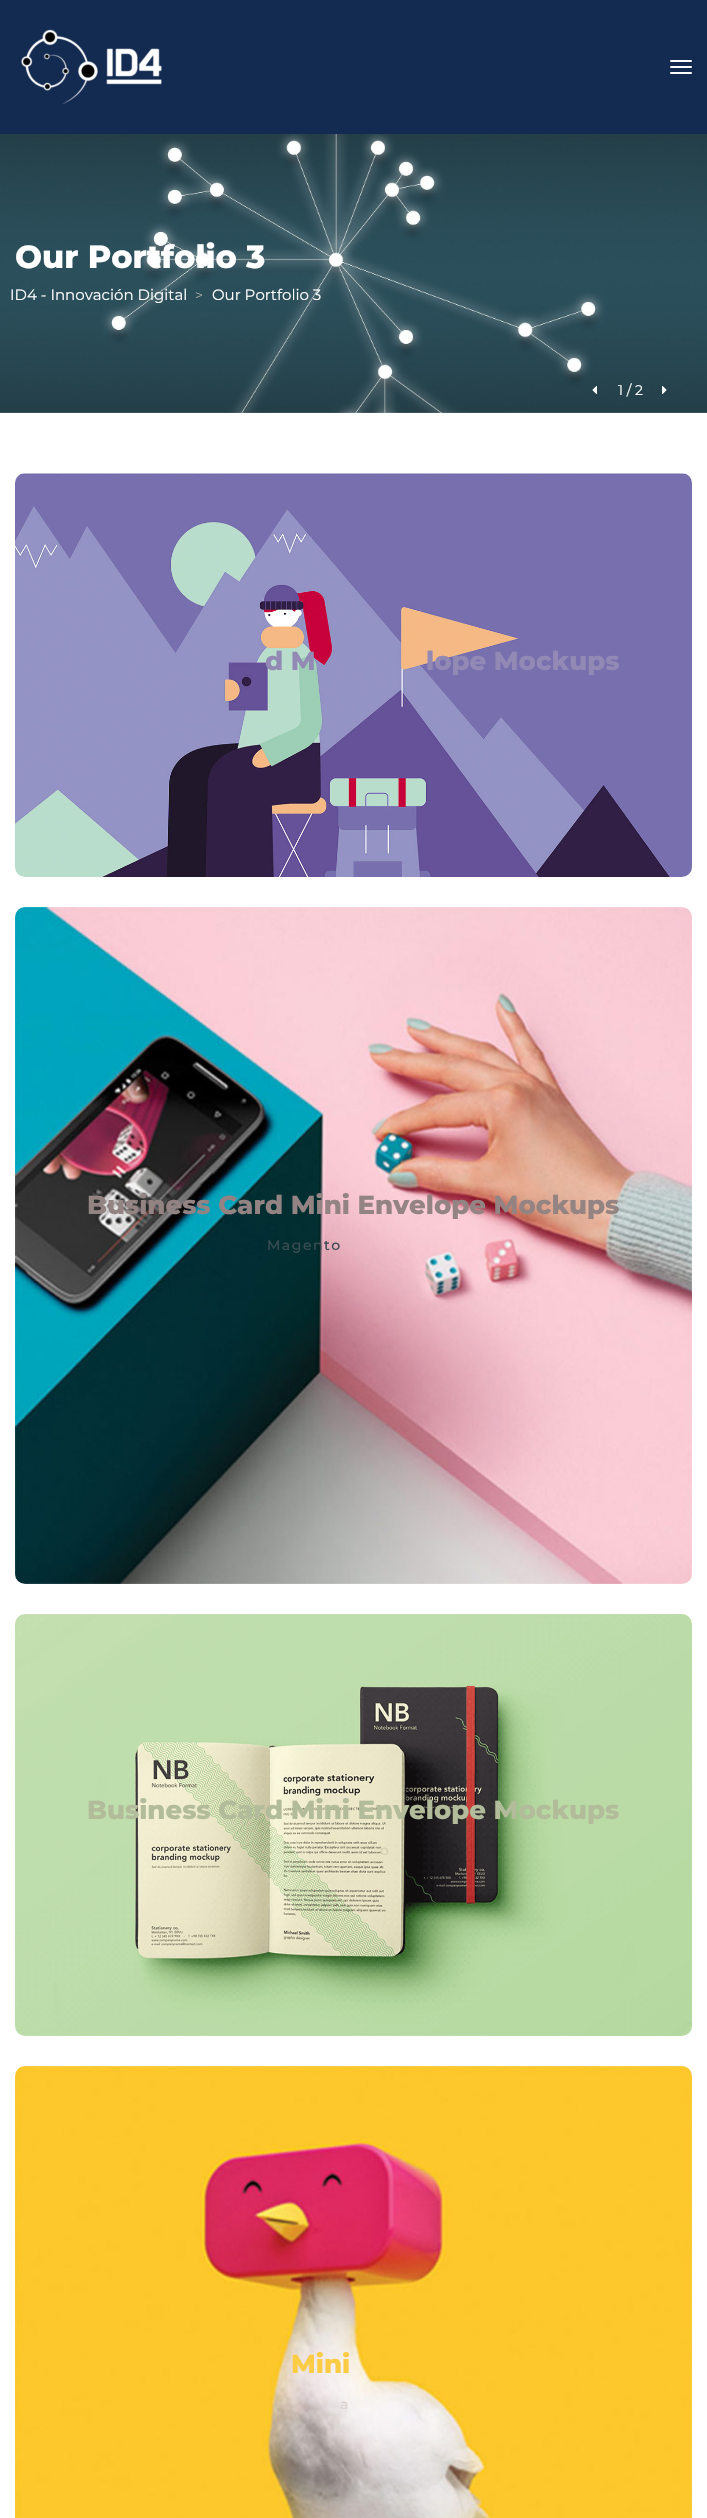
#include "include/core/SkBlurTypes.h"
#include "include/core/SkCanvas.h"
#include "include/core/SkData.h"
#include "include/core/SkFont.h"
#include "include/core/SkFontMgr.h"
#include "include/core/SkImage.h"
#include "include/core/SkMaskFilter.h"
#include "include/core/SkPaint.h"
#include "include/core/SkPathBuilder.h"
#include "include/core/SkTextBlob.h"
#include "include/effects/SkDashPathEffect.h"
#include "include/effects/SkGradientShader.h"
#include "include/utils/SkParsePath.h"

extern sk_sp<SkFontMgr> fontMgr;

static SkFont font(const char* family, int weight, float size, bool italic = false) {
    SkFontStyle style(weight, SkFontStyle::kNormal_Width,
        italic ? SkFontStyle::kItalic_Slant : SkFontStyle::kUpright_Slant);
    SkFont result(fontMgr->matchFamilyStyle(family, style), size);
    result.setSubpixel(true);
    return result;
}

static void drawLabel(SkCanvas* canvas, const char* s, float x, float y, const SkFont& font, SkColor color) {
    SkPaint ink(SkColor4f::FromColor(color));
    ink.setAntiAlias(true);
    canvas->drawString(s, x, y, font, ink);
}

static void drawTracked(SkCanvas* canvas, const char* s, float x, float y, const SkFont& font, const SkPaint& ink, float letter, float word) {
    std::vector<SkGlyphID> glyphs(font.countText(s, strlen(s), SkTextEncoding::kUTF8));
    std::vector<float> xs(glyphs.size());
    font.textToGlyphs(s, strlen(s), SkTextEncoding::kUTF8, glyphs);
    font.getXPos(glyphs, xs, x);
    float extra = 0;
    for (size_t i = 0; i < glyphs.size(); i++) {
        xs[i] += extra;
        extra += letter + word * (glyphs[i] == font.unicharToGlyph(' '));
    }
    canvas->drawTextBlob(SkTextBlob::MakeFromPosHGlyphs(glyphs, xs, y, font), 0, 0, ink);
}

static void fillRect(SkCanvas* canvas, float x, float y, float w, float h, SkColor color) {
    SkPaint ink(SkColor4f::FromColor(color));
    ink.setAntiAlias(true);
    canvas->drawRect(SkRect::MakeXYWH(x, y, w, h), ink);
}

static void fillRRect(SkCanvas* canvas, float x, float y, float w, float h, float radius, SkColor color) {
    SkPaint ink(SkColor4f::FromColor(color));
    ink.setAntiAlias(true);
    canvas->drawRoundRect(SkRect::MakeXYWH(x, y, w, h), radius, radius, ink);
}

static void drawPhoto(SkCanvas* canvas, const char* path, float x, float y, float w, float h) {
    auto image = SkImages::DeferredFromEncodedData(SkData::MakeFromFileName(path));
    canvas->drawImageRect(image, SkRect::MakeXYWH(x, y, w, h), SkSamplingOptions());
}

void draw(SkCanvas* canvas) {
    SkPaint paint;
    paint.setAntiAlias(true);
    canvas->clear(0xFFFFFFFF);
    fillRect(canvas, 0, 0, 707, 134, 0xFF142B51);
    drawPhoto(canvas, "assets/img1.png", 21, 29, 141, 75);
    fillRRect(canvas, 670, 60, 22, 2, 1, 0xFFFFFFFF);
    fillRRect(canvas, 670, 66, 22, 2, 1, 0xFFFFFFFF);
    fillRRect(canvas, 670, 72, 22, 2, 1, 0xFFFFFFFF);
    drawPhoto(canvas, "assets/img2.png", 0, 134, 707, 279);
    drawPhoto(canvas, "assets/img3.png", 592, 386, 5, 8);
    drawPhoto(canvas, "assets/img4.png", 662, 386, 5, 8);
    SkFont font1 = font("Montserrat", 800, 32);
    drawLabel(canvas, "Our Portfolio 3", 15, 268, font1, 0xFFFFFFFF);
    SkFont font2 = font("Montserrat", 400, 15);
    drawLabel(canvas, "ID4 - Innovación Digital", 10, 300, font2, 0xFFFFFFFF);
    SkFont font3 = font("Montserrat", 400, 14);
    drawLabel(canvas, ">", 195, 300, font3, 0xFFB2B2B2);
    drawLabel(canvas, "Our Portfolio 3", 212, 300, font2, 0xFFFFFFFF);
    drawLabel(canvas, "1 / 2", 618, 395, font3, 0xFFFFFFFF);
    drawPhoto(canvas, "assets/img5.png", 15, 473, 677, 404);
    SkFont font4 = font("Montserrat", 800, 26);
    drawLabel(canvas, "d M", 265, 670, font4, 0xFF928AB5);
    drawLabel(canvas, "lope Mockups", 426, 670, font4, 0xFF928AB5);
    drawPhoto(canvas, "assets/img6.png", 15, 907, 677, 677);
    drawLabel(canvas, "Business Card Mini Envelope Mockups", 87, 1214, font4, 0xFF938383);
    SkFont font5 = font("Montserrat", 500, 14);
    paint.setColor(0xFF3A4C52);
    drawTracked(canvas, "Magento", 267, 1250, font5, paint, 1.5f, 0);
    drawPhoto(canvas, "assets/img7.png", 15, 1614, 677, 422);
    drawLabel(canvas, "Business Card Mini Envelope Mockups", 87, 1819, font4, 0xFFB3BC9A);
    paint.setColor(0xFFD5D1B4);
    drawTracked(canvas, "o", 380, 1855, font5, paint, 1.5f, 0);
    drawPhoto(canvas, "assets/img8.png", 15, 2066, 677, 452);
    drawLabel(canvas, "Mini", 291, 2373, font4, 0xFFFBCC44);
    paint.setColor(0xFFDDD3D0);
    drawTracked(canvas, "a", 340, 2409, font5, paint, 1.5f, 0);
}
